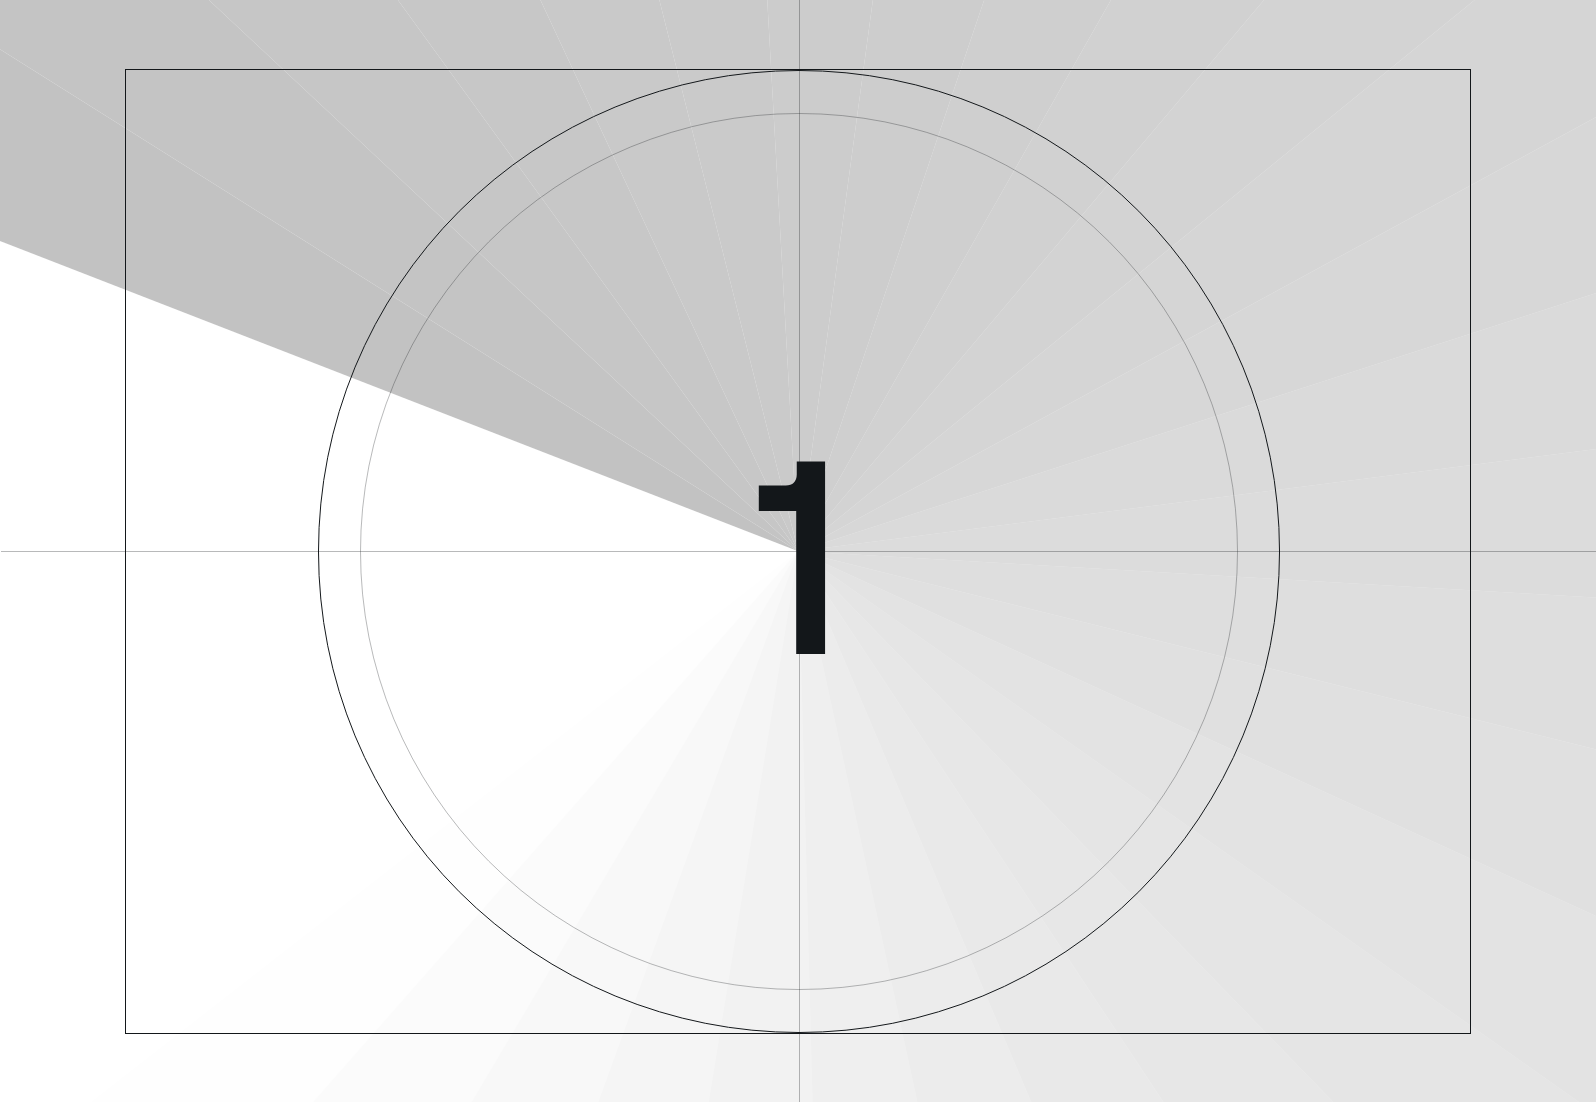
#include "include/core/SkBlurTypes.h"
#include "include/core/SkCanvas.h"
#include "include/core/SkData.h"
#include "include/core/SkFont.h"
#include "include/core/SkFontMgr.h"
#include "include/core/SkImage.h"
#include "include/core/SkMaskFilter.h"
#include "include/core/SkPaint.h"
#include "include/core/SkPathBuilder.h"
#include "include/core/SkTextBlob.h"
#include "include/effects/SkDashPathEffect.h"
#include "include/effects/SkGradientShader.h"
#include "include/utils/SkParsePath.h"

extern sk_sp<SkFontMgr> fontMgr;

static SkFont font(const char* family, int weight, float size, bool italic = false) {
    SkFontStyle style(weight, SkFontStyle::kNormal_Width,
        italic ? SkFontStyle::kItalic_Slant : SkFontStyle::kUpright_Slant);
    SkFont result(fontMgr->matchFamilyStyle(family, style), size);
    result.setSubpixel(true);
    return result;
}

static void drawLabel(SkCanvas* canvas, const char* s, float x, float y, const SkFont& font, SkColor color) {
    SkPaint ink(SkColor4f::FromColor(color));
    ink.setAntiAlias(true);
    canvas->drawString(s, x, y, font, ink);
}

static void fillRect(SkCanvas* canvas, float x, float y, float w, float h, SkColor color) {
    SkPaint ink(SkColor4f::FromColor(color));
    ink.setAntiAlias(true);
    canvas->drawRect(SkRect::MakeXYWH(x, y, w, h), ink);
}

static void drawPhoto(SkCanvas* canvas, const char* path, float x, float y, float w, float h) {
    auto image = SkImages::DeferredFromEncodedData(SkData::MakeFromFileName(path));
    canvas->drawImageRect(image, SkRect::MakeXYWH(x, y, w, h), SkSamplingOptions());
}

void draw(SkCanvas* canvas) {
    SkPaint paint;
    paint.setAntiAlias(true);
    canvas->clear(0xFFFFFFFF);
    drawPhoto(canvas, "assets/img1.png", 0, 0, 1596, 1102);
    fillRect(canvas, 1, 551, 1595, 1, 0x4D13171A);
    fillRect(canvas, 799, 0, 1, 1102, 0x4D13171A);
    paint.setStroke(true);
    paint.setStrokeWidth(1);
    paint.setColor(0xFF13171A);
    canvas->drawRect(SkRect::MakeXYWH(125.5f, 69.5f, 1345, 964), paint);
    canvas->drawRoundRect(SkRect::MakeXYWH(318.5f, 70.5f, 961, 962), 480.5f, 480.5f, paint);
    paint.setColor(0x4D13171A);
    canvas->drawRoundRect(SkRect::MakeXYWH(360.5f, 113.5f, 877, 876), 438, 438, paint);
    SkFont font1 = font("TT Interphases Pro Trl", 500, 275);
    drawLabel(canvas, "1", 750, 654, font1, 0xFF13171A);
}
